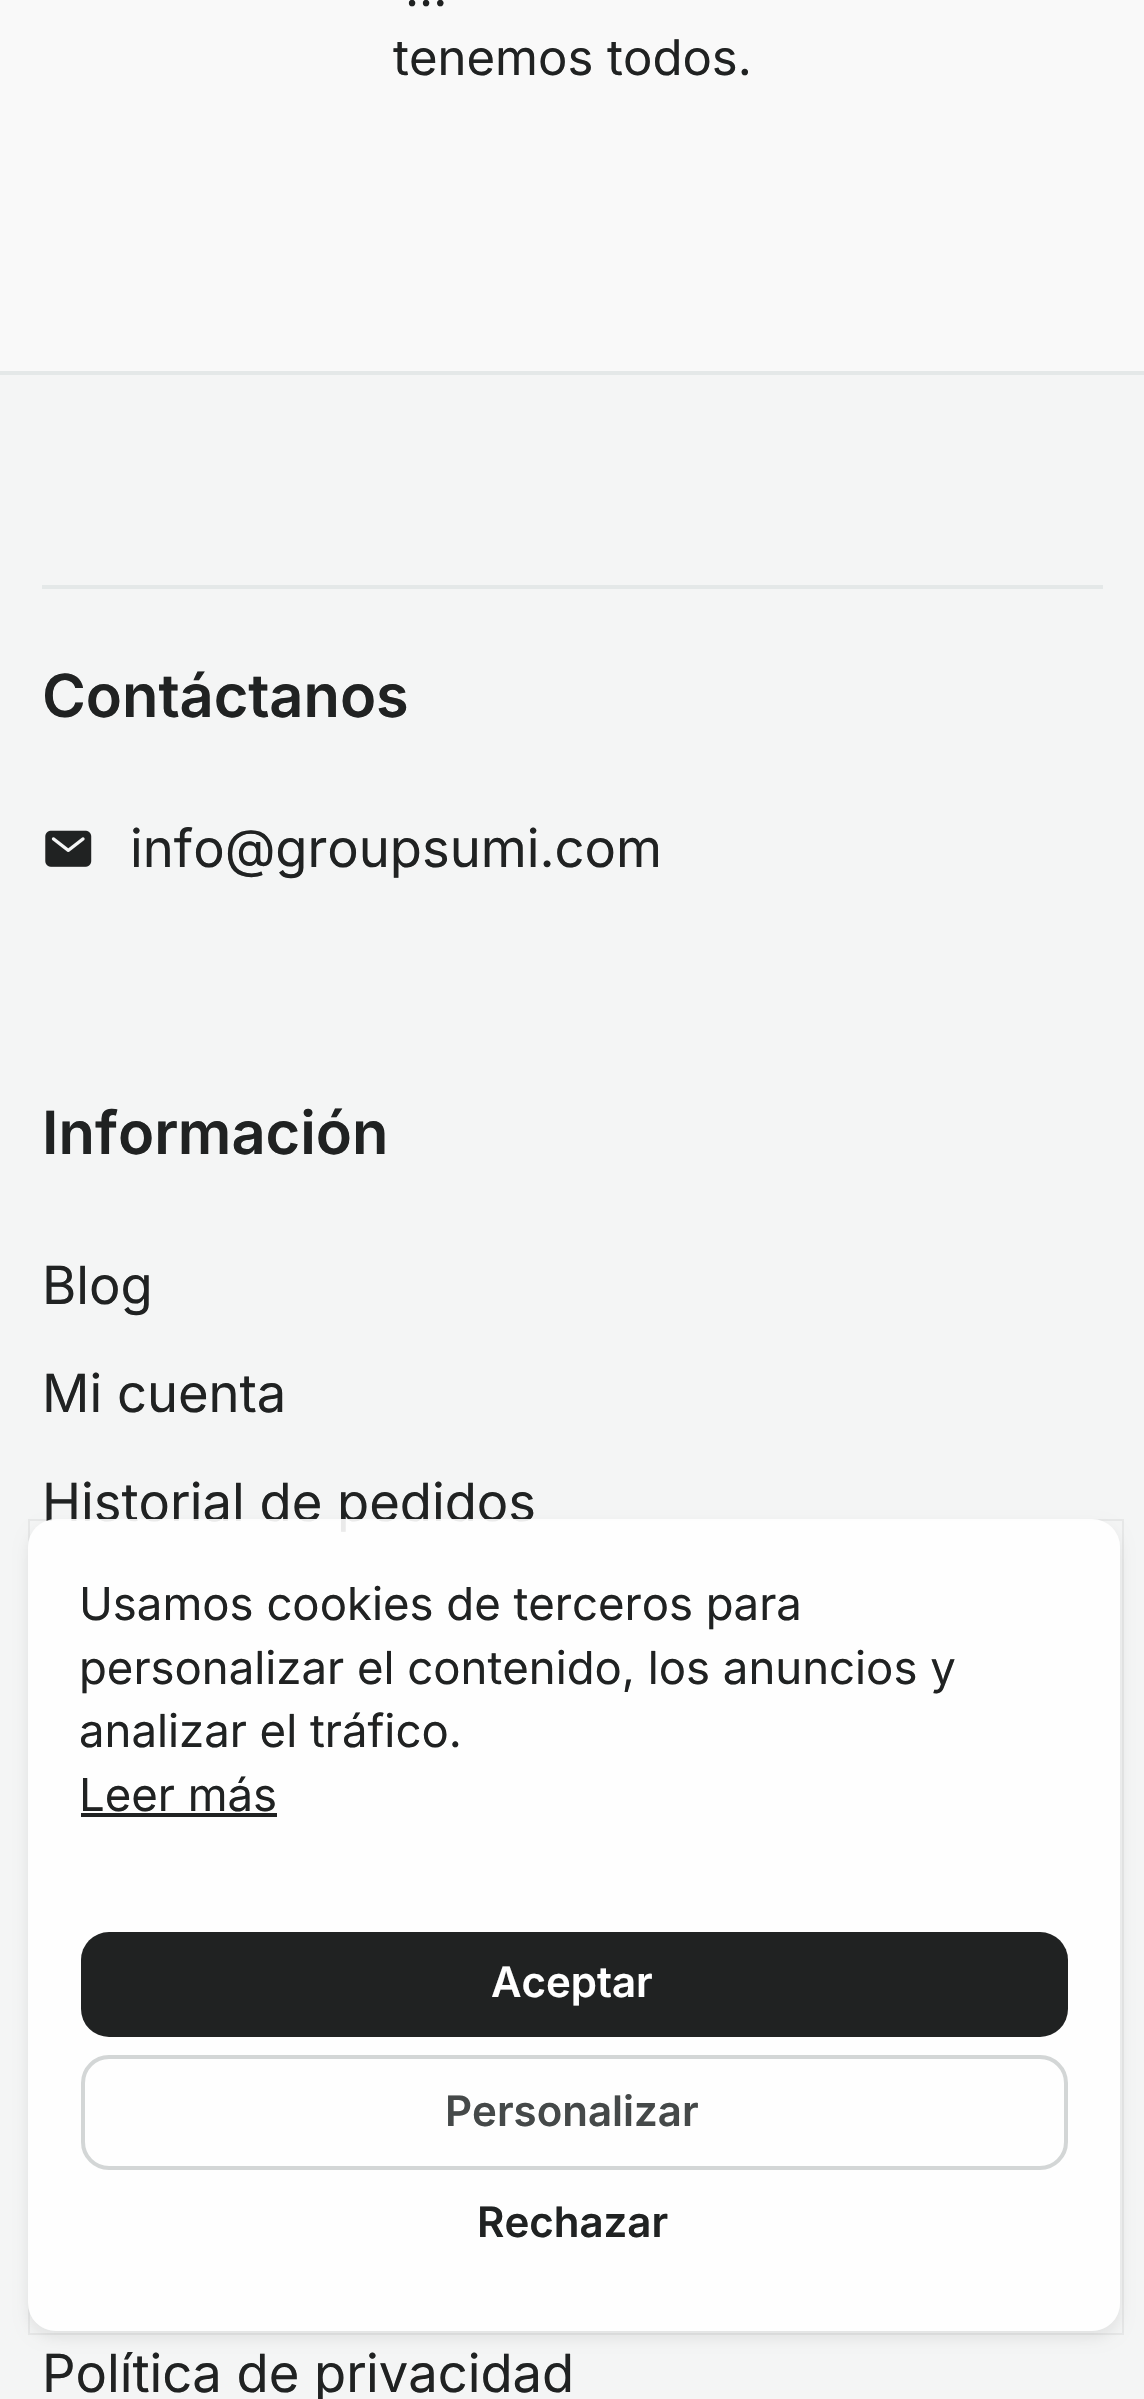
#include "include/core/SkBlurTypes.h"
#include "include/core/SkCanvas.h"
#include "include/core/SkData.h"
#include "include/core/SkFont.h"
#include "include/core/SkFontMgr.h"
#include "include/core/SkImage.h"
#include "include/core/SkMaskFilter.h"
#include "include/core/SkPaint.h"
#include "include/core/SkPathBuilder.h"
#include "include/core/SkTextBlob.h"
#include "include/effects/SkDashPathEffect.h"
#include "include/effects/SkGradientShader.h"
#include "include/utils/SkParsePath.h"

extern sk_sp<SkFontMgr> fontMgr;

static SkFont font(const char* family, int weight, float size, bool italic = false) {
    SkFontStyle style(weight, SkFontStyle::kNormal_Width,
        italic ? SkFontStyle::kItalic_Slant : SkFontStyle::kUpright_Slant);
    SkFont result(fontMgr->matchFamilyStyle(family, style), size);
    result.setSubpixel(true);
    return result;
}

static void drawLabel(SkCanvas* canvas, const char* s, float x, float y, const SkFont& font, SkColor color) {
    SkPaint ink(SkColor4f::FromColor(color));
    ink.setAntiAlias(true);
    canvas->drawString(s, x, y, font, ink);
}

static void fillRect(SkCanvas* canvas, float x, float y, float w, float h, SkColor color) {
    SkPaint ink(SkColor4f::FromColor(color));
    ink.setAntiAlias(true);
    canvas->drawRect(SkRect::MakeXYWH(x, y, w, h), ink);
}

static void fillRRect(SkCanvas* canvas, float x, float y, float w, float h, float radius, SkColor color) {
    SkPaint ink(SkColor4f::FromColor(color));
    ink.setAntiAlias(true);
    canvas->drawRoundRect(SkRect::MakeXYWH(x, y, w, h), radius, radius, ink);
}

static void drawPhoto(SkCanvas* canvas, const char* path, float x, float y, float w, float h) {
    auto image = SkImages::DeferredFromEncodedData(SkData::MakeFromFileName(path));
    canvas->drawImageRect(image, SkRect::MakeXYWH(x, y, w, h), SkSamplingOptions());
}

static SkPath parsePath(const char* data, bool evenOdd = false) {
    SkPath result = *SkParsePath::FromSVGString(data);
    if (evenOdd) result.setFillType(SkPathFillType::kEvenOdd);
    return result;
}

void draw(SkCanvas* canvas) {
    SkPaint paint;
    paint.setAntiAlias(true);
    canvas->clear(0xFFF9F9F9);
    SkFont font1 = font("Inter", 400, 49);
    drawLabel(canvas, "...", 405, 6, font1, 0xFF202222);
    drawLabel(canvas, "tenemos todos.", 393, 75, font1, 0xFF202222);
    fillRect(canvas, 0, 375, 1144, 2024, 0xFFF4F5F5);
    fillRect(canvas, 0, 371, 1144, 4, 0xFFE4E8E8);
    fillRect(canvas, 42, 585, 1061, 4, 0xFFE4E8E8);
    SkFont font2 = font("Inter", 600, 59.5f);
    drawLabel(canvas, "Contáctanos", 42, 717, font2, 0xFF202222);
    drawPhoto(canvas, "assets/img1.png", 45, 830, 47, 37);
    SkFont font3 = font("Inter", 400, 52.5f);
    drawLabel(canvas, "info@groupsumi.com", 130, 867, font3, 0xFF202222);
    drawLabel(canvas, "Información", 42, 1154, font2, 0xFF202222);
    drawLabel(canvas, "Blog", 42, 1304, font3, 0xFF202222);
    drawLabel(canvas, "Mi cuenta", 42, 1412, font3, 0xFF202222);
    drawLabel(canvas, "Historial de pedidos", 42, 1521, font3, 0xFF202222);
    drawLabel(canvas, "Política de privacidad", 42, 2392, font3, 0xFF202222);
    paint.setStroke(true);
    paint.setStrokeWidth(2);
    paint.setColor(0x0D000000);
    canvas->drawRect(SkRect::MakeXYWH(29, 1520, 1094, 814), paint);
    canvas->save();
    canvas->clipPath(parsePath("M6 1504H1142V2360H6ZM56 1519H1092C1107.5 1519 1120 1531.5 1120 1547V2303C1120 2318.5 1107.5 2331 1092 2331H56C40.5 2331 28 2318.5 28 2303V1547C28 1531.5 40.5 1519 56 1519Z", true), true);
    paint.setStroke(false);
    paint.setColor(0x14000000);
    paint.setMaskFilter(SkMaskFilter::MakeBlur(kNormal_SkBlurStyle, 7));
    canvas->drawRoundRect(SkRect::MakeXYWH(28, 1526, 1092, 812), 28, 28, paint);
    paint.setMaskFilter(nullptr);
    canvas->restore();
    fillRRect(canvas, 28, 1519, 1092, 812, 28, 0xE6FFFFFF);
    SkFont font4 = font("Inter", 400, 45.5f);
    drawLabel(canvas, "Usamos cookies de terceros para", 79, 1620, font4, 0xFF202222);
    drawLabel(canvas, "personalizar el contenido, los anuncios y", 79, 1684, font4, 0xFF202222);
    canvas->save();
    canvas->clipRect(SkRect::MakeXYWH(81, 1572, 987, 255));
    drawLabel(canvas, "analizar el tráfico.", 79, 1747, font4, 0xFF202222);
    canvas->restore();
    drawLabel(canvas, "Leer más", 79, 1811, font4, 0xFF202222);
    fillRect(canvas, 81, 1813, 196, 4, 0xFF202222);
    fillRRect(canvas, 81, 1932, 987, 105, 28, 0xFF202222);
    SkFont font5 = font("Inter", 600, 42);
    drawLabel(canvas, "Aceptar", 491, 1997, font5, 0xFFFFFFFF);
    paint.setStroke(true);
    paint.setStrokeWidth(4);
    paint.setColor(0xFFD3D6D6);
    canvas->drawRoundRect(SkRect::MakeXYWH(83, 2057, 983, 111), 26, 26, paint);
    drawLabel(canvas, "Personalizar", 445, 2126, font5, 0xFF454949);
    drawLabel(canvas, "Rechazar", 477, 2237, font5, 0xFF202222);
}
